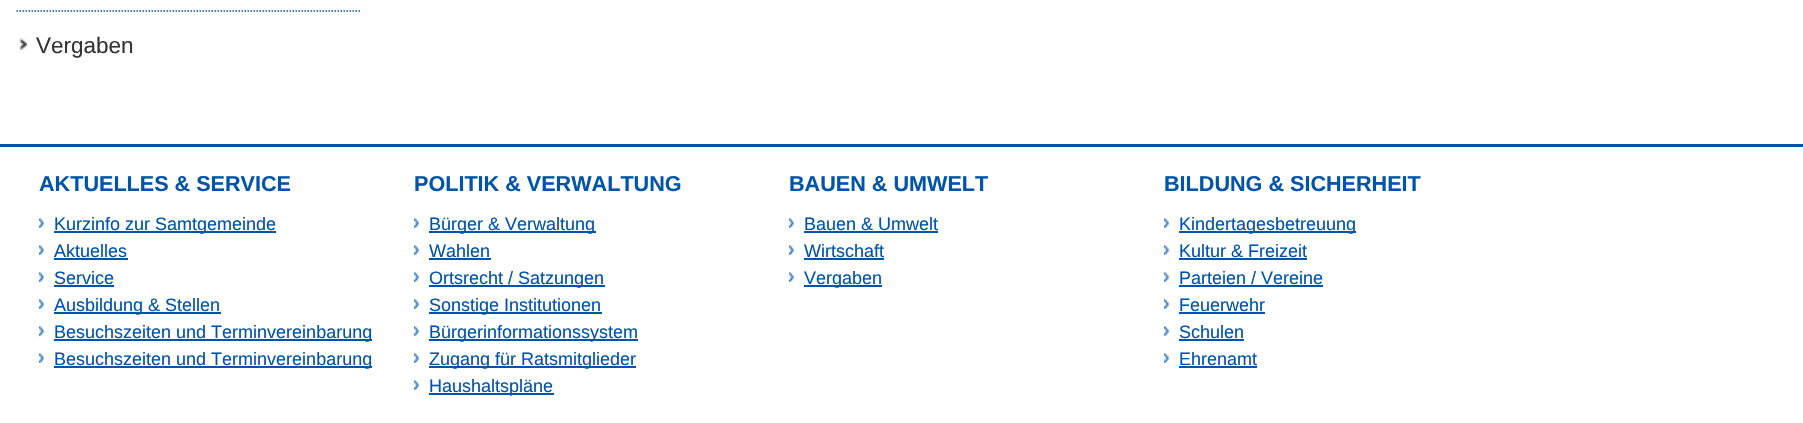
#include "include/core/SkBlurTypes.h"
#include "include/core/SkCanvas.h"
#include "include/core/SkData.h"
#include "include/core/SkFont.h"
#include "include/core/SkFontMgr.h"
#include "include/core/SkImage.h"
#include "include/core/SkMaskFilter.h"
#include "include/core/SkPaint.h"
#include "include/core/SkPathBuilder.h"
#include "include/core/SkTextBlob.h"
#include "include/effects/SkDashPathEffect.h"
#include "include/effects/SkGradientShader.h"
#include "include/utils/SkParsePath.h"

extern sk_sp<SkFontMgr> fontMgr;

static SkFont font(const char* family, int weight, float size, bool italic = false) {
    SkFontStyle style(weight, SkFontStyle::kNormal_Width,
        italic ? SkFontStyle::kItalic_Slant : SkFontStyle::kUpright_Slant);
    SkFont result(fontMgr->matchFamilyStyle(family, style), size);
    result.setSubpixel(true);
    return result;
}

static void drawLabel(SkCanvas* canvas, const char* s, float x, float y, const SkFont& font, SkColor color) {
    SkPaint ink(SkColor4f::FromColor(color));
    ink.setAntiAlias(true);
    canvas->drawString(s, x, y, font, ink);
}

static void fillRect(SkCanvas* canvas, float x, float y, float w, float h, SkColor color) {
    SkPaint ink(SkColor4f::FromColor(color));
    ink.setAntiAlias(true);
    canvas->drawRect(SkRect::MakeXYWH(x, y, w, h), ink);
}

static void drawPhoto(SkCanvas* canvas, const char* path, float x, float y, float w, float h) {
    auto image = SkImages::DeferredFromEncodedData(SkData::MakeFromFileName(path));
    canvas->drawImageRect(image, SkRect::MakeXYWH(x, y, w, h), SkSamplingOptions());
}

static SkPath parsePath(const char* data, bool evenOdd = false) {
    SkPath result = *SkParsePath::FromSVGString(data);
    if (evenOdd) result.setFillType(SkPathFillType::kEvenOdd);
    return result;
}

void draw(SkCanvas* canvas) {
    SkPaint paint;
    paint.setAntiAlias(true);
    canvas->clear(0xFFFFFFFF);
    paint.setStroke(true);
    paint.setStrokeWidth(1.5f);
    paint.setColor(0xFF0054AA);
    paint.setPathEffect(SkDashPathEffect::Make({{1.5f, 1.5f}}, 0));
    canvas->drawPath(parsePath("M16.5 11H361.5"), paint);
    paint.setPathEffect(nullptr);
    drawPhoto(canvas, "assets/img1.png", 19, 38, 8, 13);
    SkFont font1 = font("Liberation Sans", 400, 22.5f);
    drawLabel(canvas, "Vergaben", 36, 53, font1, 0xFF333333);
    fillRect(canvas, 0, 144, 1803, 3, 0xFF0054AA);
    SkFont font2 = font("Liberation Sans", 700, 21.6f);
    drawLabel(canvas, "AKTUELLES & SERVICE", 39, 191, font2, 0xFF0054AA);
    drawPhoto(canvas, "assets/img2.png", 39, 218, 6, 11);
    fillRect(canvas, 54, 231, 222, 2, 0xFF0054AA);
    SkFont font3 = font("Liberation Sans", 400, 18);
    drawLabel(canvas, "Kurzinfo zur Samtgemeinde", 54, 230, font3, 0xFF0054AA);
    drawPhoto(canvas, "assets/img2.png", 39, 245, 6, 11);
    drawLabel(canvas, "Aktuelles", 54, 257, font3, 0xFF0054AA);
    fillRect(canvas, 54, 258, 74, 2, 0xFF0054AA);
    drawPhoto(canvas, "assets/img2.png", 39, 272, 6, 11);
    drawLabel(canvas, "Service", 54, 284, font3, 0xFF0054AA);
    fillRect(canvas, 54, 285, 60, 2, 0xFF0054AA);
    drawPhoto(canvas, "assets/img2.png", 39, 299, 6, 11);
    fillRect(canvas, 54, 312, 167, 2, 0xFF0054AA);
    drawLabel(canvas, "Ausbildung & Stellen", 54, 311, font3, 0xFF0054AA);
    drawPhoto(canvas, "assets/img2.png", 39, 326, 6, 11);
    fillRect(canvas, 54, 339, 318, 2, 0xFF0054AA);
    drawLabel(canvas, "Besuchszeiten und Terminvereinbarung", 54, 338, font3, 0xFF0054AA);
    drawPhoto(canvas, "assets/img2.png", 39, 353, 6, 11);
    fillRect(canvas, 54, 366, 318, 2, 0xFF0054AA);
    drawLabel(canvas, "Besuchszeiten und Terminvereinbarung", 54, 365, font3, 0xFF0054AA);
    drawLabel(canvas, "POLITIK & VERWALTUNG", 414, 191, font2, 0xFF0054AA);
    drawPhoto(canvas, "assets/img3.png", 414, 218, 6, 11);
    fillRect(canvas, 429, 231, 167, 2, 0xFF0054AA);
    drawLabel(canvas, "Bürger & Verwaltung", 429, 230, font3, 0xFF0054AA);
    drawPhoto(canvas, "assets/img3.png", 414, 245, 6, 11);
    drawLabel(canvas, "Wahlen", 429, 257, font3, 0xFF0054AA);
    fillRect(canvas, 429, 258, 62, 2, 0xFF0054AA);
    drawPhoto(canvas, "assets/img3.png", 414, 272, 6, 11);
    fillRect(canvas, 429, 285, 176, 2, 0xFF0054AA);
    drawLabel(canvas, "Ortsrecht / Satzungen", 429, 284, font3, 0xFF0054AA);
    drawPhoto(canvas, "assets/img3.png", 414, 299, 6, 11);
    fillRect(canvas, 429, 312, 173, 2, 0xFF0054AA);
    drawLabel(canvas, "Sonstige Institutionen", 429, 311, font3, 0xFF0054AA);
    drawPhoto(canvas, "assets/img3.png", 414, 326, 6, 11);
    fillRect(canvas, 429, 339, 209, 2, 0xFF0054AA);
    drawLabel(canvas, "Bürgerinformationssystem", 429, 338, font3, 0xFF0054AA);
    drawPhoto(canvas, "assets/img3.png", 414, 353, 6, 11);
    fillRect(canvas, 429, 366, 207, 2, 0xFF0054AA);
    drawLabel(canvas, "Zugang für Ratsmitglieder", 429, 365, font3, 0xFF0054AA);
    drawPhoto(canvas, "assets/img3.png", 414, 380, 6, 11);
    fillRect(canvas, 429, 393, 125, 2, 0xFF0054AA);
    drawLabel(canvas, "Haushaltspläne", 429, 392, font3, 0xFF0054AA);
    drawLabel(canvas, "BAUEN & UMWELT", 789, 191, font2, 0xFF0054AA);
    drawPhoto(canvas, "assets/img2.png", 789, 218, 6, 11);
    drawLabel(canvas, "Bauen & Umwelt", 804, 230, font3, 0xFF0054AA);
    fillRect(canvas, 804, 231, 134, 2, 0xFF0054AA);
    drawPhoto(canvas, "assets/img2.png", 789, 245, 6, 11);
    drawLabel(canvas, "Wirtschaft", 804, 257, font3, 0xFF0054AA);
    fillRect(canvas, 804, 258, 80, 2, 0xFF0054AA);
    drawPhoto(canvas, "assets/img2.png", 789, 272, 6, 11);
    fillRect(canvas, 804, 285, 78, 2, 0xFF0054AA);
    drawLabel(canvas, "Vergaben", 804, 284, font3, 0xFF0054AA);
    drawLabel(canvas, "BILDUNG & SICHERHEIT", 1164, 191, font2, 0xFF0054AA);
    drawPhoto(canvas, "assets/img3.png", 1164, 218, 6, 11);
    fillRect(canvas, 1179, 231, 177, 2, 0xFF0054AA);
    drawLabel(canvas, "Kindertagesbetreuung", 1179, 230, font3, 0xFF0054AA);
    drawPhoto(canvas, "assets/img3.png", 1164, 245, 6, 11);
    drawLabel(canvas, "Kultur & Freizeit", 1179, 257, font3, 0xFF0054AA);
    fillRect(canvas, 1179, 258, 128, 2, 0xFF0054AA);
    drawPhoto(canvas, "assets/img3.png", 1164, 272, 6, 11);
    drawLabel(canvas, "Parteien / Vereine", 1179, 284, font3, 0xFF0054AA);
    fillRect(canvas, 1179, 285, 144, 2, 0xFF0054AA);
    drawPhoto(canvas, "assets/img3.png", 1164, 299, 6, 11);
    drawLabel(canvas, "Feuerwehr", 1179, 311, font3, 0xFF0054AA);
    fillRect(canvas, 1179, 312, 86, 2, 0xFF0054AA);
    drawPhoto(canvas, "assets/img3.png", 1164, 326, 6, 11);
    drawLabel(canvas, "Schulen", 1179, 338, font3, 0xFF0054AA);
    fillRect(canvas, 1179, 339, 65, 2, 0xFF0054AA);
    drawPhoto(canvas, "assets/img3.png", 1164, 353, 6, 11);
    drawLabel(canvas, "Ehrenamt", 1179, 365, font3, 0xFF0054AA);
    fillRect(canvas, 1179, 366, 78, 2, 0xFF0054AA);
}
